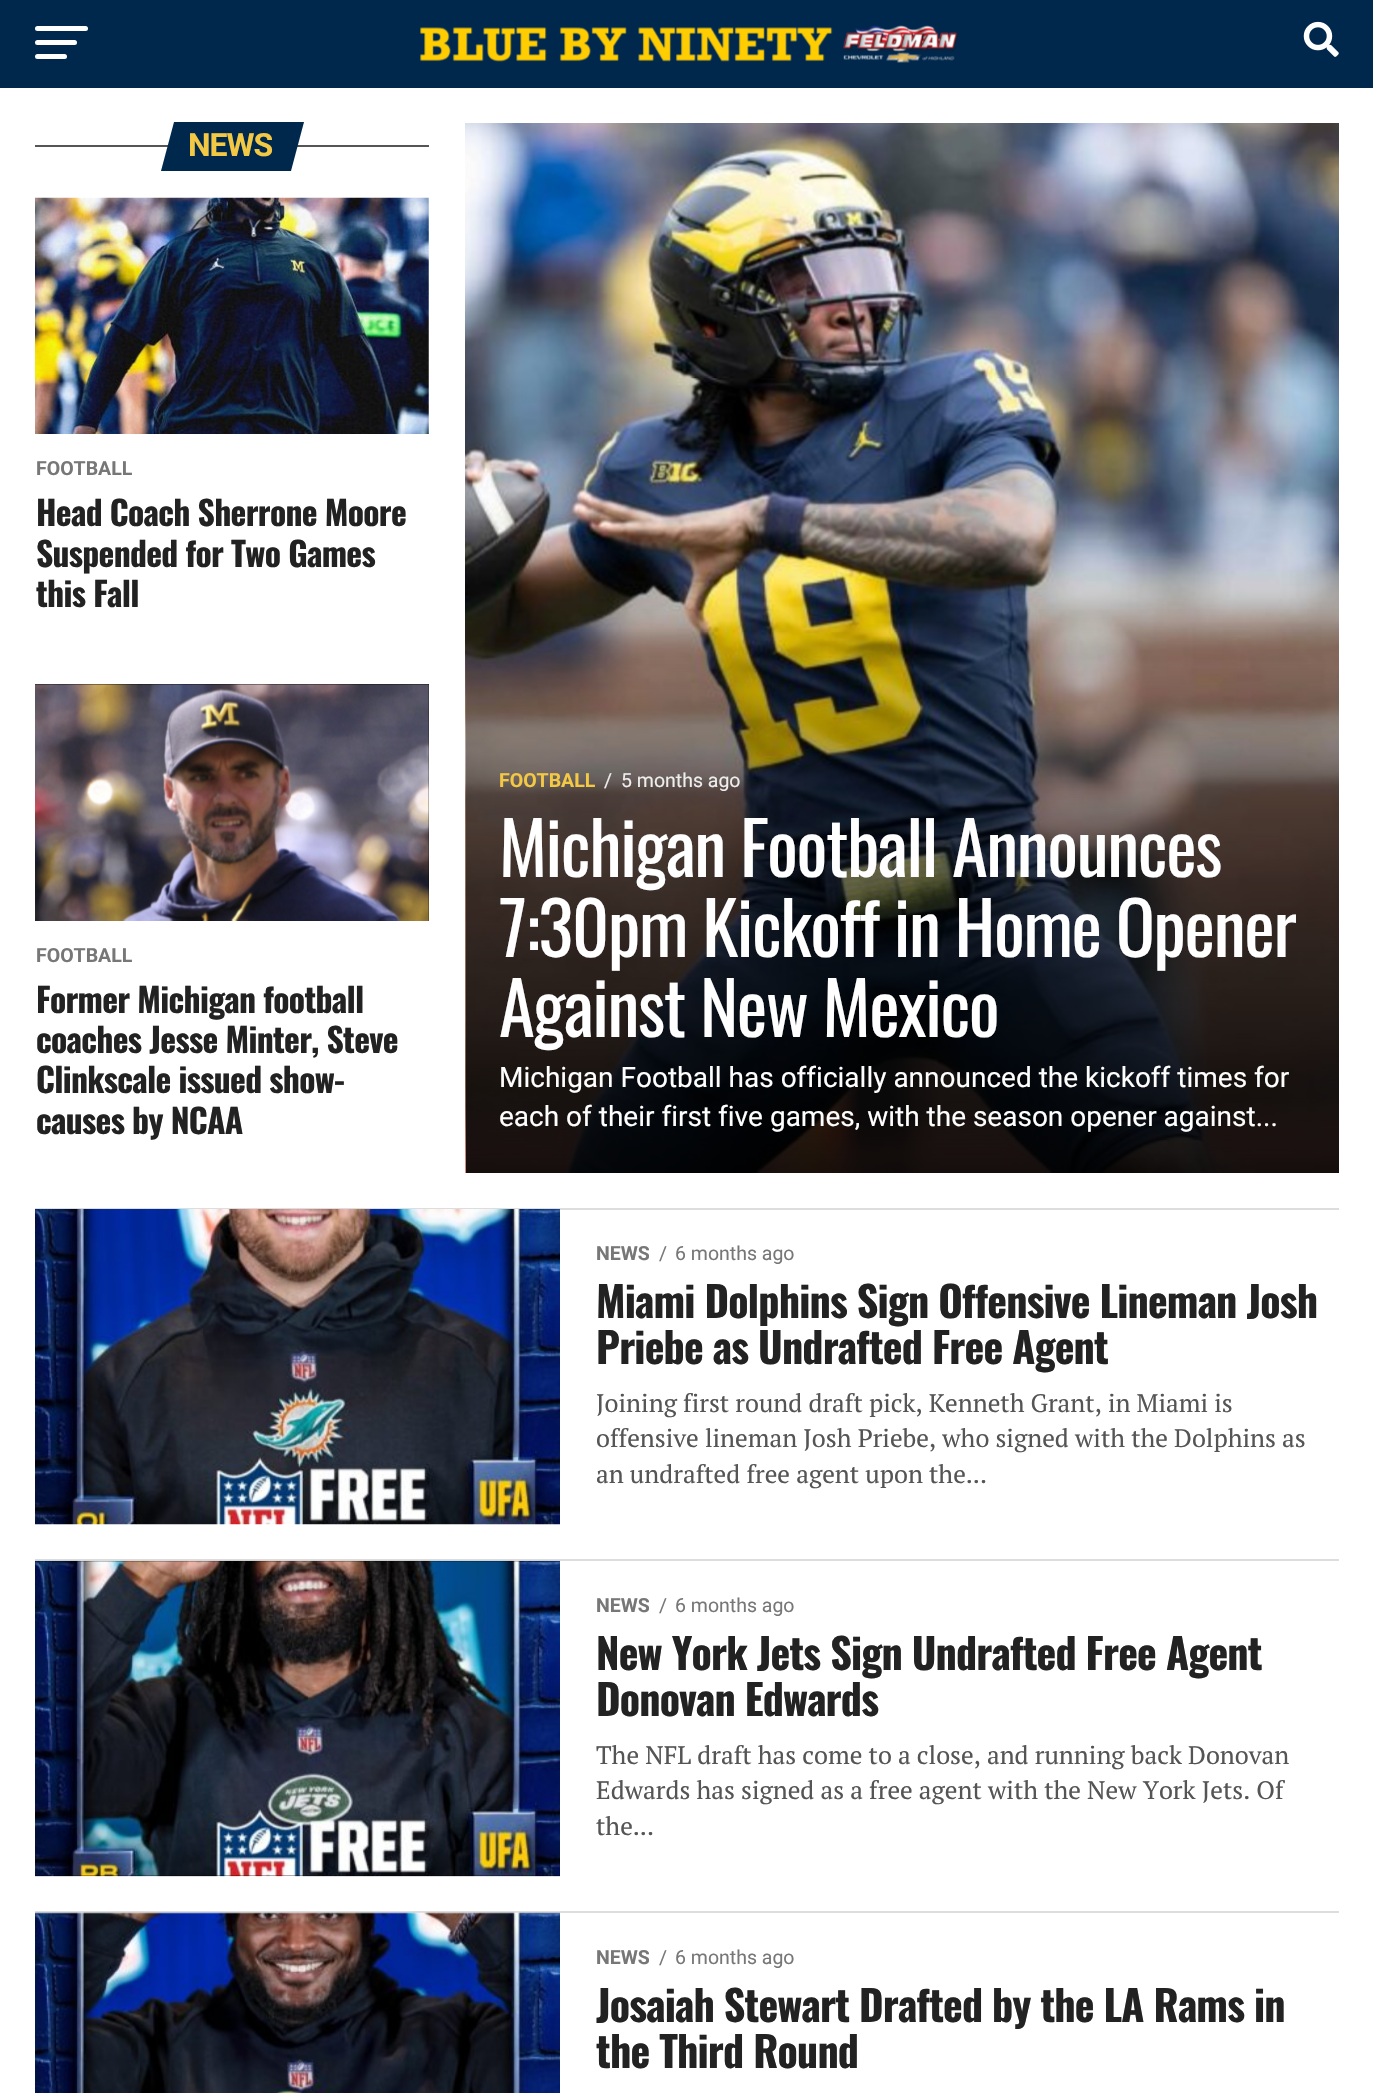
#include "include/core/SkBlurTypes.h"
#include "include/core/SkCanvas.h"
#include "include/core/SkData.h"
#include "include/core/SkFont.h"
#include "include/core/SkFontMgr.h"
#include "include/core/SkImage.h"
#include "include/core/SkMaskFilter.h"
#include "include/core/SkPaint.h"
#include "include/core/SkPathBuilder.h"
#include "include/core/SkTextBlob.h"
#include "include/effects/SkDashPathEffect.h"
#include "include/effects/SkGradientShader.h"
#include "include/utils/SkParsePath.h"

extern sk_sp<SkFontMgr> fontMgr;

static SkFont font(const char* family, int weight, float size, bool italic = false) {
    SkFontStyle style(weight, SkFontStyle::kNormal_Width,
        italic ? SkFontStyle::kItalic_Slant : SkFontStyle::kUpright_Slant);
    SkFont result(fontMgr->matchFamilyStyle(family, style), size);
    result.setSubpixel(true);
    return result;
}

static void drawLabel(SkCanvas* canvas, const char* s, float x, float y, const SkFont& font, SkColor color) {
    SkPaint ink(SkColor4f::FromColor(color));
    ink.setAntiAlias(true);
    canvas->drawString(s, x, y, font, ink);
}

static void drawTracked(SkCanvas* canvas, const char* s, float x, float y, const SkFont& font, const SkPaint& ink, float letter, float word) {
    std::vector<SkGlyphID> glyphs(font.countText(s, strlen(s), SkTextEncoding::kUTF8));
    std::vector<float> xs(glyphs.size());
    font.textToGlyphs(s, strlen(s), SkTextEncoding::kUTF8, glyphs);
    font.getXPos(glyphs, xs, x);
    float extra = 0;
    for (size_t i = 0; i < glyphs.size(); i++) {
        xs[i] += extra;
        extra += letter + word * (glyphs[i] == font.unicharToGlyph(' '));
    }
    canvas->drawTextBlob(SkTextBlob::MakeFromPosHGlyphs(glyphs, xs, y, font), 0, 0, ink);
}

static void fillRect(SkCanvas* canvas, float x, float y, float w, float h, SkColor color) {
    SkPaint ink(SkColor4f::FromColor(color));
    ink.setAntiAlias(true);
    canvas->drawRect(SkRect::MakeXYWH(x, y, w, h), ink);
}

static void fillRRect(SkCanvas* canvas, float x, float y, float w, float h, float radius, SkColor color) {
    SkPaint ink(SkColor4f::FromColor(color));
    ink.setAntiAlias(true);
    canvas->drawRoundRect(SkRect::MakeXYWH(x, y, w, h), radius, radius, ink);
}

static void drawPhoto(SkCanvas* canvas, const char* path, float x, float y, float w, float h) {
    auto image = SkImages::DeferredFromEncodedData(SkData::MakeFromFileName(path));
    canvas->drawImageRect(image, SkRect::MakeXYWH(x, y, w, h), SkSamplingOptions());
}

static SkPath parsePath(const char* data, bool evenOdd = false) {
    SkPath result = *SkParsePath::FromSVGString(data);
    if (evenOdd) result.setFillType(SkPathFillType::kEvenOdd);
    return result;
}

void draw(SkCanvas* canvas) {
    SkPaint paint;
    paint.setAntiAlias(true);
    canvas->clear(0xFFFFFFFF);
    fillRect(canvas, 0, 0, 1373, 88, 0xFF00274C);
    fillRRect(canvas, 35, 26, 53, 5, 2.5f, 0xFFFFFFFF);
    fillRRect(canvas, 35, 40, 42, 5, 2.5f, 0xFFFFFFFF);
    fillRRect(canvas, 35, 54, 32, 5, 2.5f, 0xFFFFFFFF);
    drawPhoto(canvas, "assets/img1.png", 420, 25, 538, 38);
    drawPhoto(canvas, "assets/img2.png", 1303, 21, 36, 36);
    fillRect(canvas, 35, 145, 394, 2, 0xFF555555);
    paint.setColor(0xFF00274C);
    canvas->drawPath(parsePath("M174 122H304L291 171H161Z"), paint);
    SkFont font1 = font("Roboto", 700, 32);
    paint.setColor(0xFFF3C845);
    drawTracked(canvas, "NEWS", 188, 156, font1, paint, -1, 0);
    drawPhoto(canvas, "assets/img3.png", 35, 197, 394, 237);
    SkFont font2 = font("Roboto", 700, 19.5f);
    drawLabel(canvas, "FOOTBALL", 36, 475, font2, 0xFF777777);
    SkFont font3 = font("Oswald", 700, 33.6f);
    paint.setColor(0xFF222222);
    drawTracked(canvas, "Head Coach Sherrone Moore", 36, 526, font3, paint, -0.7f, 0);
    drawTracked(canvas, "Suspended for Two Games", 36, 567, font3, paint, -0.7f, 0);
    drawTracked(canvas, "this Fall", 36, 607, font3, paint, -0.7f, 0);
    fillRect(canvas, 35, 684, 394, 237, 0xFF000000);
    drawPhoto(canvas, "assets/img4.png", 35, 684, 394, 237);
    drawLabel(canvas, "FOOTBALL", 36, 962, font2, 0xFF777777);
    drawTracked(canvas, "Former Michigan football", 36, 1013, font3, paint, -0.7f, 0);
    drawTracked(canvas, "coaches Jesse Minter, Steve", 36, 1053, font3, paint, -0.7f, 0);
    drawTracked(canvas, "Clinkscale issued show-", 36, 1093, font3, paint, -0.7f, 0);
    drawTracked(canvas, "causes by NCAA", 36, 1134, font3, paint, -0.7f, 0);
    drawPhoto(canvas, "assets/img5.png", 465, 123, 874, 1050);
    drawLabel(canvas, "FOOTBALL", 499, 787, font2, 0xFFF3C845);
    SkFont font4 = font("Roboto", 400, 19.5f);
    drawLabel(canvas, "/", 604, 787, font4, 0xFFEEEEEE);
    drawLabel(canvas, "5 months ago", 621, 787, font4, 0xFFEEEEEE);
    SkFont font5 = font("Oswald", 400, 72.75f);
    paint.setColor(0xFFFFFFFF);
    drawTracked(canvas, "Michigan Football Announces", 499, 877, font5, paint, -1.45f, 0);
    drawTracked(canvas, "7:30pm Kickoff in Home Opener", 499, 957, font5, paint, -1.45f, 0);
    drawTracked(canvas, "Against New Mexico", 499, 1037, font5, paint, -1.45f, 0);
    SkFont font6 = font("Roboto", 400, 28);
    drawLabel(canvas, "Michigan Football has officially announced the kickoff times for", 499, 1087, font6, 0xFFFFFFFF);
    drawLabel(canvas, "each of their first five games, with the season opener against...", 499, 1126, font6, 0xFFFFFFFF);
    fillRect(canvas, 35, 1208, 1304, 2, 0xFFDDDDDD);
    drawPhoto(canvas, "assets/img6.png", 35, 1209, 525, 316);
    drawLabel(canvas, "NEWS", 596, 1260, font2, 0xFF777777);
    drawLabel(canvas, "/", 659, 1260, font4, 0xFF777777);
    drawLabel(canvas, "6 months ago", 675, 1260, font4, 0xFF777777);
    SkFont font7 = font("Oswald", 700, 42);
    paint.setColor(0xFF222222);
    drawTracked(canvas, "Miami Dolphins Sign Offensive Lineman Josh", 596, 1318, font7, paint, -0.85f, 0);
    drawTracked(canvas, "Priebe as Undrafted Free Agent", 596, 1364, font7, paint, -0.85f, 0);
    SkFont font8 = font("PT Serif", 400, 25.2f);
    drawLabel(canvas, "Joining first round draft pick, Kenneth Grant, in Miami is", 596, 1412, font8, 0xFF555555);
    drawLabel(canvas, "offensive lineman Josh Priebe, who signed with the Dolphins as", 596, 1447, font8, 0xFF555555);
    drawLabel(canvas, "an undrafted free agent upon the...", 596, 1483, font8, 0xFF555555);
    fillRect(canvas, 35, 1559, 1304, 2, 0xFFDDDDDD);
    fillRect(canvas, 35, 1561, 525, 315, 0xFF000000);
    drawPhoto(canvas, "assets/img7.png", 35, 1560, 525, 317);
    drawLabel(canvas, "NEWS", 596, 1612, font2, 0xFF777777);
    drawLabel(canvas, "/", 659, 1612, font4, 0xFF777777);
    drawLabel(canvas, "6 months ago", 675, 1612, font4, 0xFF777777);
    drawTracked(canvas, "New York Jets Sign Undrafted Free Agent", 596, 1670, font7, paint, -0.85f, 0);
    drawTracked(canvas, "Donovan Edwards", 596, 1716, font7, paint, -0.85f, 0);
    drawLabel(canvas, "The NFL draft has come to a close, and running back Donovan", 596, 1764, font8, 0xFF555555);
    drawLabel(canvas, "Edwards has signed as a free agent with the New York Jets. Of", 596, 1799, font8, 0xFF555555);
    drawLabel(canvas, "the...", 596, 1835, font8, 0xFF555555);
    fillRect(canvas, 35, 1911, 1304, 2, 0xFFDDDDDD);
    drawPhoto(canvas, "assets/img8.png", 35, 1912, 525, 181);
    drawLabel(canvas, "NEWS", 596, 1964, font2, 0xFF777777);
    drawLabel(canvas, "/", 659, 1964, font4, 0xFF777777);
    drawLabel(canvas, "6 months ago", 675, 1964, font4, 0xFF777777);
    drawTracked(canvas, "Josaiah Stewart Drafted by the LA Rams in", 596, 2022, font7, paint, -0.85f, 0);
    drawTracked(canvas, "the Third Round", 596, 2068, font7, paint, -0.85f, 0);
}
